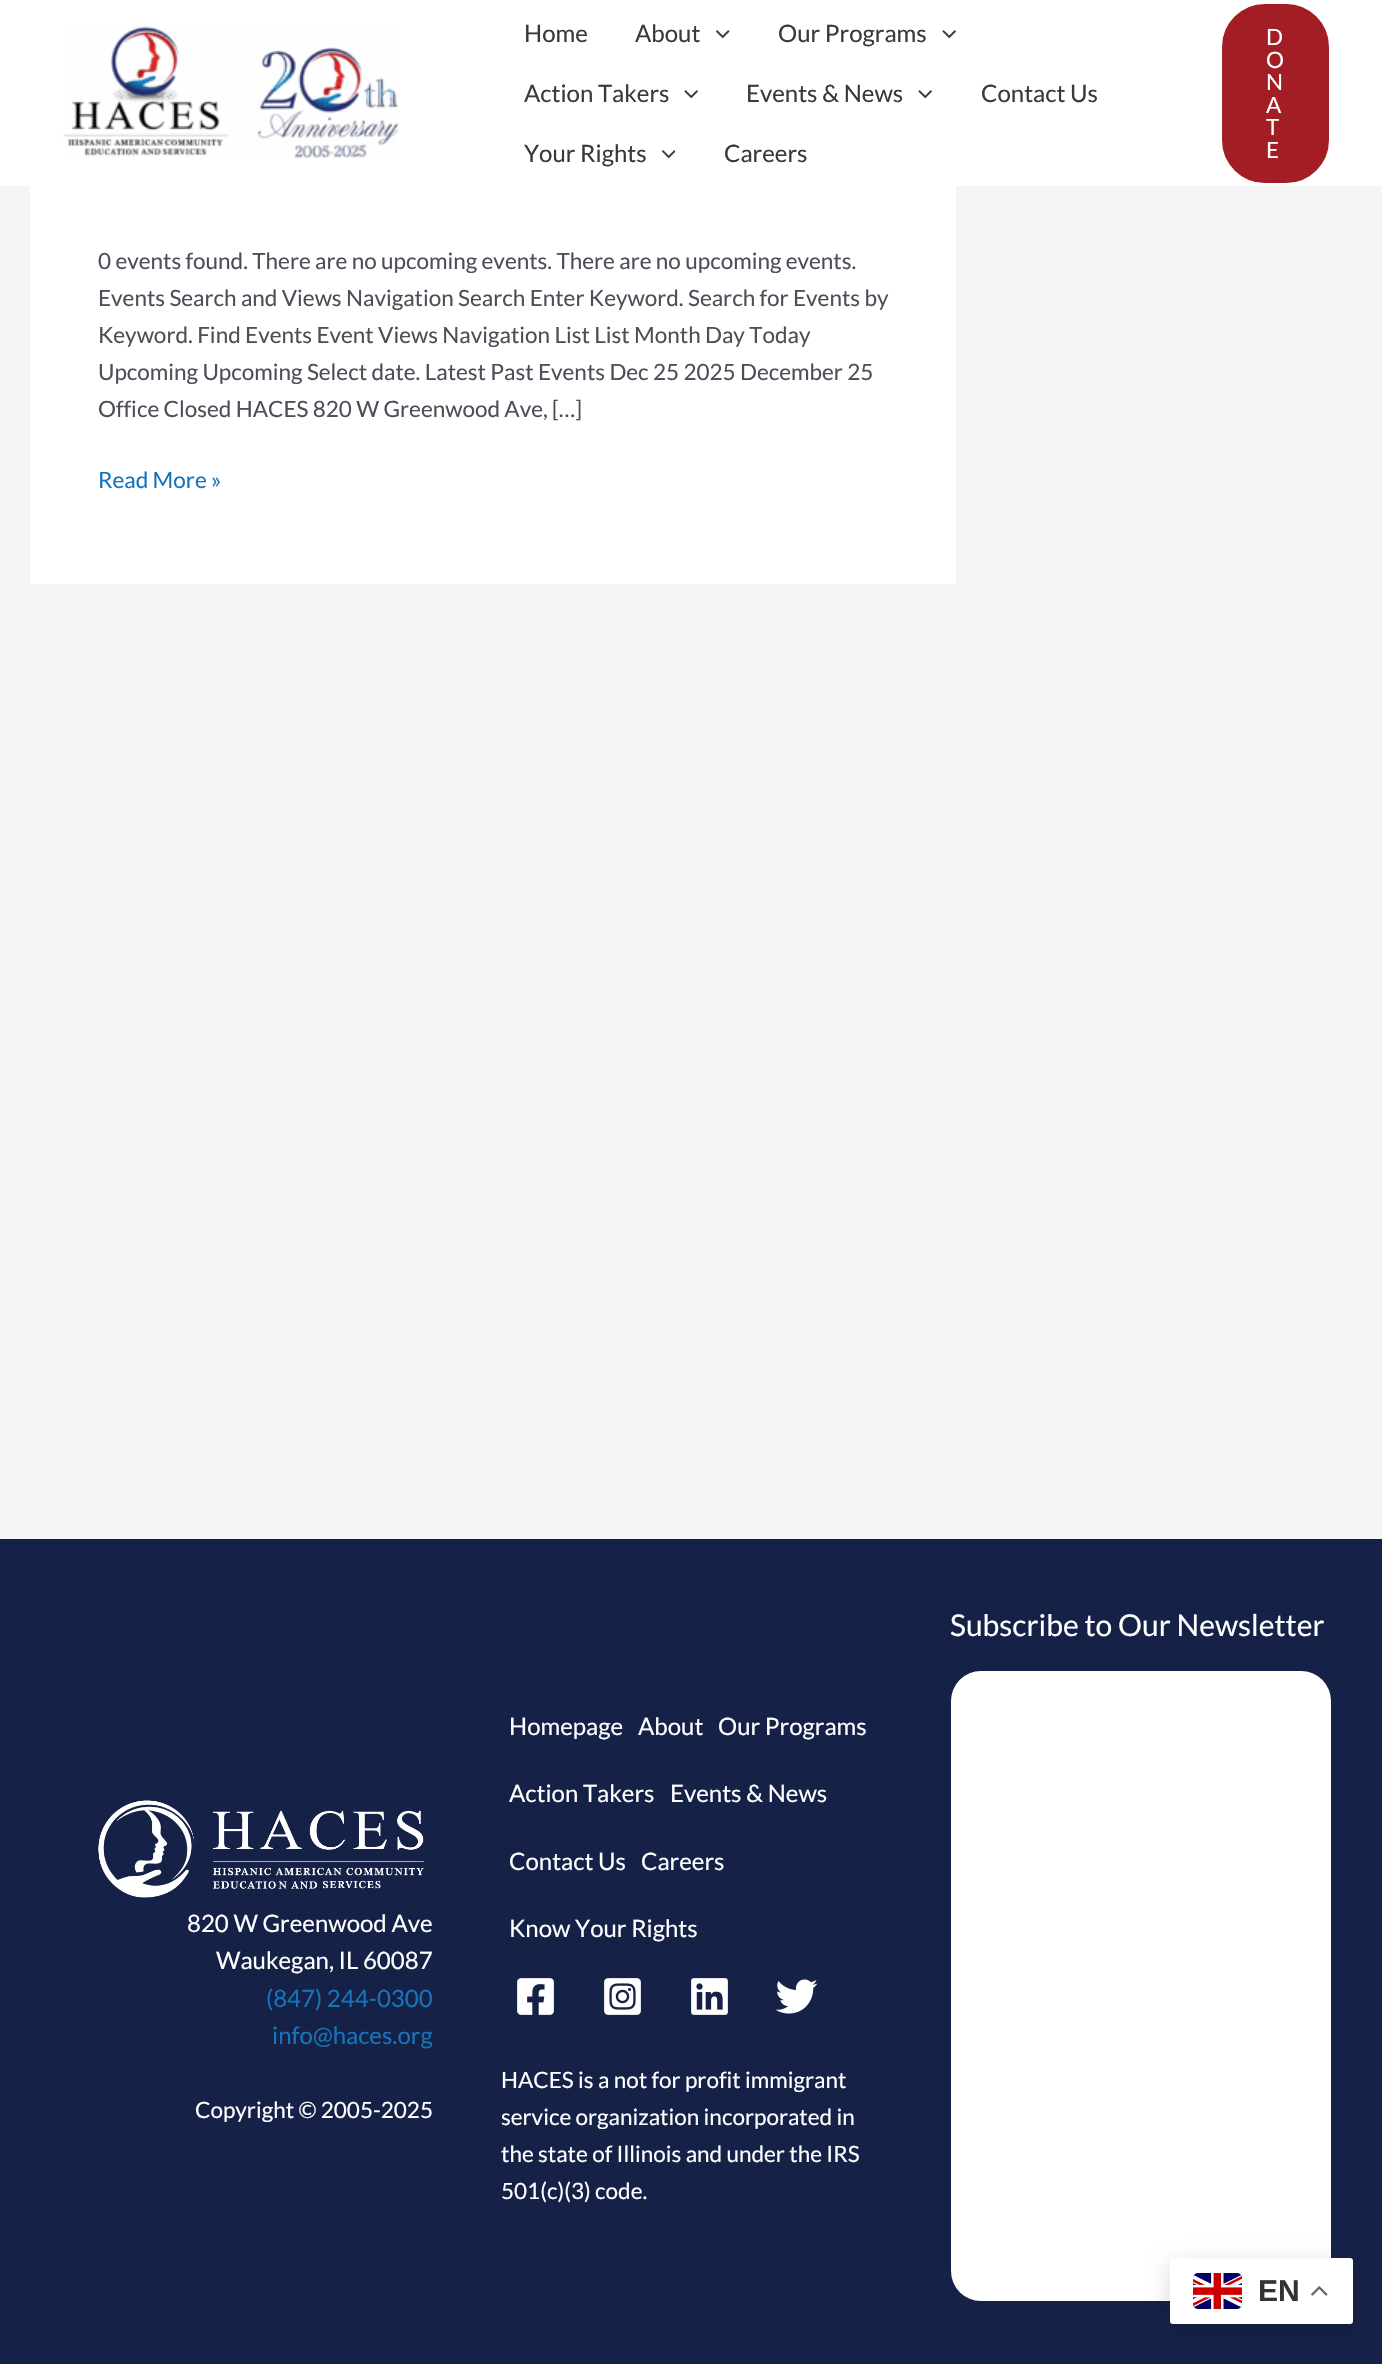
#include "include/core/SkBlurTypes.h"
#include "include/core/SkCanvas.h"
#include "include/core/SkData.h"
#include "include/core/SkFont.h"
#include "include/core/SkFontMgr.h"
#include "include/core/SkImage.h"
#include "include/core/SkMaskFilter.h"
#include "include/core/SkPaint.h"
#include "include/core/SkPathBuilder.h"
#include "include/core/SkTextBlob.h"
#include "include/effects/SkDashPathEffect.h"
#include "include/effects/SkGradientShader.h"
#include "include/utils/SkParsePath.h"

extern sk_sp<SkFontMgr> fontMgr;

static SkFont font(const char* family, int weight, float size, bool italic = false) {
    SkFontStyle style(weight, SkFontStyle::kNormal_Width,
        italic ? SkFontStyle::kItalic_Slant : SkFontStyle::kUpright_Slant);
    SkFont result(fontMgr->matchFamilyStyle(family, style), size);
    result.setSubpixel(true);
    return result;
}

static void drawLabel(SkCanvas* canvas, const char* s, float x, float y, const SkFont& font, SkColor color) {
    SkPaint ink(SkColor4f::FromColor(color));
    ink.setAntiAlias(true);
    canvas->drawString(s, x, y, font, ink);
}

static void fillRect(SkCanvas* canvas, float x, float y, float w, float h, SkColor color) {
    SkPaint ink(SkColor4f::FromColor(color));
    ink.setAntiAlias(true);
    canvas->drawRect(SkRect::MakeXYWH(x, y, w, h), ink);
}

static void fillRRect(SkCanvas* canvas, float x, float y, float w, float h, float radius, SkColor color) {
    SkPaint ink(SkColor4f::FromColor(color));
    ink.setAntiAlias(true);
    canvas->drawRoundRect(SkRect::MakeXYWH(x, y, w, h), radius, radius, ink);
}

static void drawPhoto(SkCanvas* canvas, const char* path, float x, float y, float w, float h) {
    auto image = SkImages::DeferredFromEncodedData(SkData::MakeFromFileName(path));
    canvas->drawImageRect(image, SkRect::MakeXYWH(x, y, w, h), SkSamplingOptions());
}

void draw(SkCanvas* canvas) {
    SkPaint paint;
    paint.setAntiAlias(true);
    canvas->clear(0xFFF5F5F5);
    fillRect(canvas, 0, 0, 1382, 186, 0xFFFFFFFF);
    drawPhoto(canvas, "assets/img1.png", 63, 26, 336, 132);
    SkFont font1 = font("Lato", 400, 24);
    drawLabel(canvas, "Home", 524, 42, font1, 0xFF3A3A3A);
    drawLabel(canvas, "About", 635, 42, font1, 0xFF3A3A3A);
    drawPhoto(canvas, "assets/img2.png", 716, 30, 14, 9);
    drawLabel(canvas, "Our Programs", 778, 42, font1, 0xFF3A3A3A);
    drawPhoto(canvas, "assets/img3.png", 942, 30, 14, 9);
    drawLabel(canvas, "Action Takers", 524, 102, font1, 0xFF3A3A3A);
    drawPhoto(canvas, "assets/img3.png", 684, 90, 14, 9);
    drawLabel(canvas, "Events & News", 746, 102, font1, 0xFF3A3A3A);
    drawPhoto(canvas, "assets/img3.png", 918, 90, 14, 9);
    drawLabel(canvas, "Contact Us", 981, 102, font1, 0xFF3A3A3A);
    drawLabel(canvas, "Your Rights", 524, 162, font1, 0xFF3A3A3A);
    drawPhoto(canvas, "assets/img4.png", 662, 150, 13, 9);
    drawLabel(canvas, "Careers", 724, 162, font1, 0xFF3A3A3A);
    paint.setColor(0xFFA31E24);
    canvas->drawRoundRect(SkRect::MakeXYWH(1221, 3, 109, 181), 44, 44, paint);
    paint.setStroke(true);
    paint.setStrokeWidth(2);
    paint.setColor(0xFFFFFFFF);
    canvas->drawRoundRect(SkRect::MakeXYWH(1221, 3, 109, 181), 44, 44, paint);
    SkFont font2 = font("Lato", 400, 22.5f);
    drawLabel(canvas, "D", 1266, 45, font2, 0xFFFFFFFF);
    drawLabel(canvas, "O", 1266, 68, font2, 0xFFFFFFFF);
    drawLabel(canvas, "N", 1266, 90, font2, 0xFFFFFFFF);
    drawLabel(canvas, "A", 1266, 113, font2, 0xFFFFFFFF);
    drawLabel(canvas, "T", 1266, 135, font2, 0xFFFFFFFF);
    drawLabel(canvas, "E", 1266, 158, font2, 0xFFFFFFFF);
    fillRect(canvas, 30, 186, 926, 398, 0xFFFFFFFF);
    drawLabel(canvas, "0 events found. There are no upcoming events. There are no upcoming events.", 98, 269, font2, 0xFF4B4F58);
    drawLabel(canvas, "Events Search and Views Navigation Search Enter Keyword. Search for Events by", 98, 306, font2, 0xFF4B4F58);
    drawLabel(canvas, "Keyword. Find Events Event Views Navigation List List Month Day Today", 98, 343, font2, 0xFF4B4F58);
    drawLabel(canvas, "Upcoming Upcoming Select date. Latest Past Events Dec 25 2025 December 25", 98, 380, font2, 0xFF4B4F58);
    drawLabel(canvas, "Office Closed HACES 820 W Greenwood Ave, […]", 98, 417, font2, 0xFF4B4F58);
    drawLabel(canvas, "Read More »", 98, 488, font2, 0xFF1674BA);
    fillRect(canvas, 0, 1539, 1382, 825, 0xFF152147);
    SkFont font3 = font("Lato", 400, 30);
    drawLabel(canvas, "Subscribe to Our Newsletter", 950, 1636, font3, 0xFFFFFFFF);
    fillRRect(canvas, 951, 1671, 380, 630, 30, 0xFFFFFFFF);
    drawPhoto(canvas, "assets/img5.png", 98, 1800, 326, 98);
    drawLabel(canvas, "820 W Greenwood Ave", 187, 1932, font1, 0xFFFFFFFF);
    drawLabel(canvas, "Waukegan, IL 60087", 216, 1969, font1, 0xFFFFFFFF);
    drawLabel(canvas, "(847) 244-0300", 266, 2007, font1, 0xFF1674BA);
    drawLabel(canvas, "info@haces.org", 272, 2044, font1, 0xFF1674BA);
    drawLabel(canvas, "Copyright © 2005-2025", 195, 2118, font2, 0xFFFFFFFF);
    drawLabel(canvas, "Homepage", 509, 1735, font1, 0xFFFFFFFF);
    drawLabel(canvas, "About", 638, 1735, font1, 0xFFFFFFFF);
    drawLabel(canvas, "Our Programs", 718, 1735, font1, 0xFFFFFFFF);
    drawLabel(canvas, "Action Takers", 509, 1802, font1, 0xFFFFFFFF);
    drawLabel(canvas, "Events & News", 670, 1802, font1, 0xFFFFFFFF);
    drawLabel(canvas, "Contact Us", 509, 1870, font1, 0xFFFFFFFF);
    drawLabel(canvas, "Careers", 641, 1870, font1, 0xFFFFFFFF);
    drawLabel(canvas, "Know Your Rights", 509, 1937, font1, 0xFFFFFFFF);
    drawPhoto(canvas, "assets/img6.png", 517, 1978, 37, 37);
    drawPhoto(canvas, "assets/img7.png", 604, 1978, 37, 37);
    drawPhoto(canvas, "assets/img8.png", 691, 1978, 37, 37);
    drawPhoto(canvas, "assets/img9.png", 776, 1979, 42, 35);
    drawLabel(canvas, "HACES is a not for profit immigrant", 501, 2088, font2, 0xFFFFFFFF);
    drawLabel(canvas, "service organization incorporated in", 501, 2125, font2, 0xFFFFFFFF);
    drawLabel(canvas, "the state of Illinois and under the IRS", 501, 2162, font2, 0xFFFFFFFF);
    drawLabel(canvas, "501(c)(3) code.", 501, 2199, font2, 0xFFFFFFFF);
    paint.setStroke(false);
    paint.setColor(0x26000000);
    paint.setMaskFilter(SkMaskFilter::MakeBlur(kNormal_SkBlurStyle, 11));
    canvas->drawRoundRect(SkRect::MakeXYWH(1170, 2265, 183, 66), 3, 3, paint);
    paint.setMaskFilter(nullptr);
    fillRRect(canvas, 1170, 2258, 183, 66, 3, 0xFFFFFFFF);
    drawPhoto(canvas, "assets/img10.png", 1193, 2273, 49, 36);
    SkFont font4 = font("Liberation Sans", 700, 30);
    drawLabel(canvas, "EN", 1258, 2301, font4, 0xFF333333);
    drawPhoto(canvas, "assets/img11.png", 1311, 2286, 17, 10);
}
